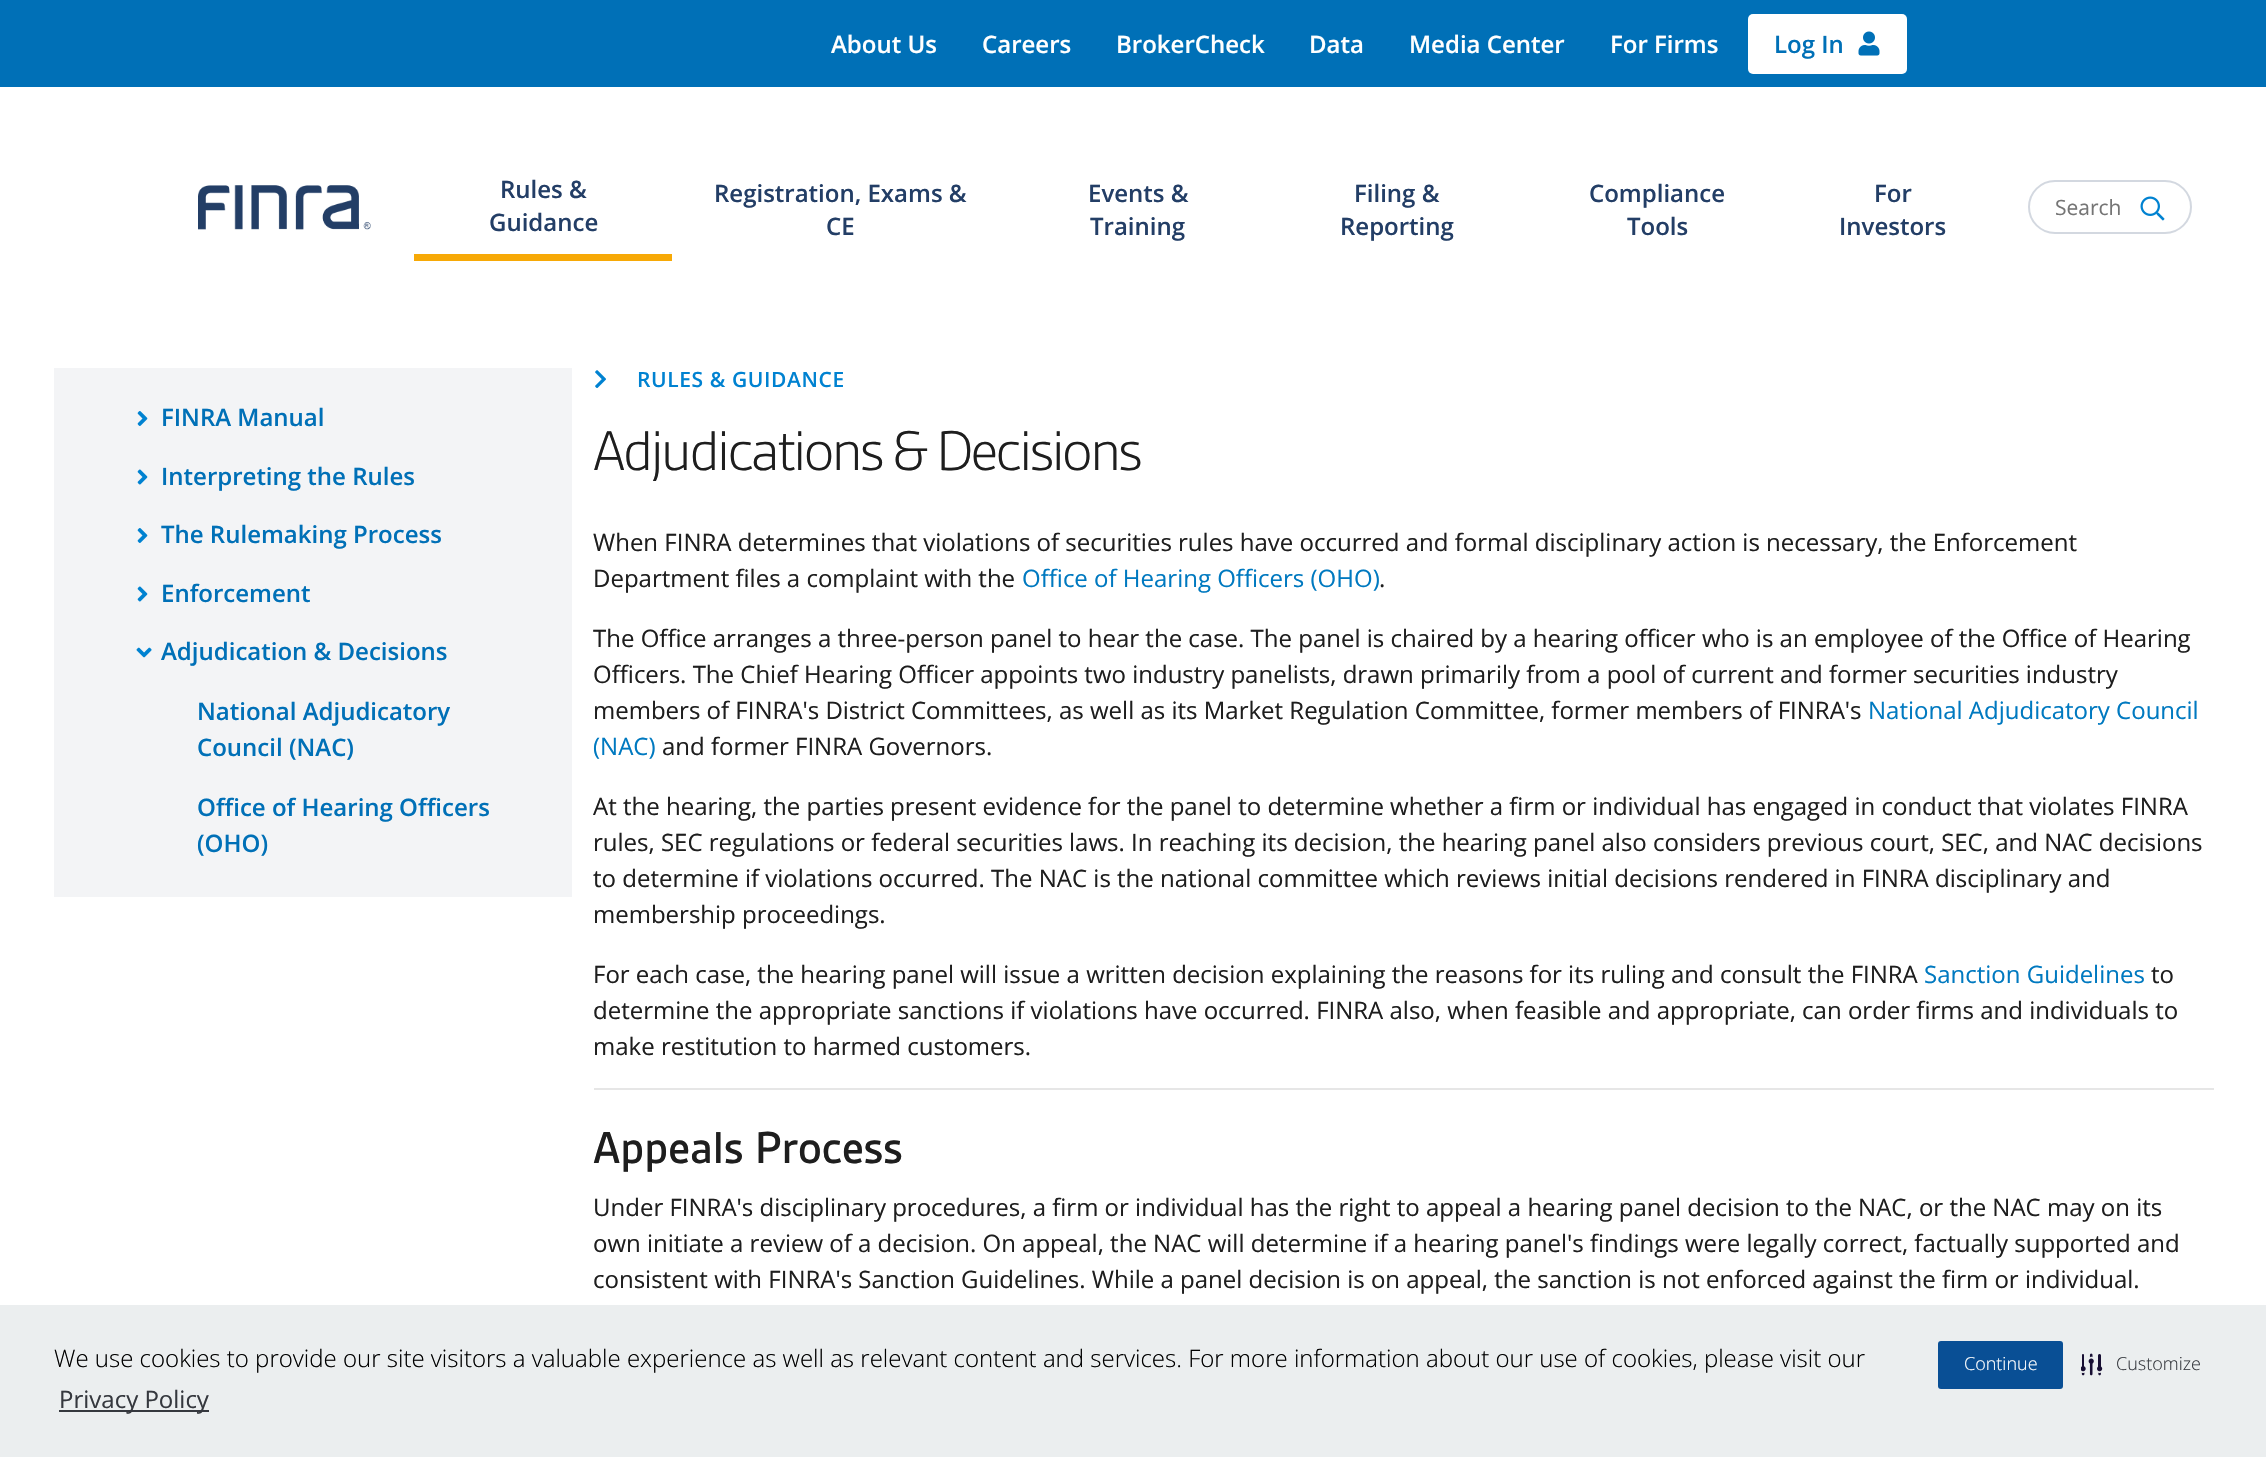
#include "include/core/SkBlurTypes.h"
#include "include/core/SkCanvas.h"
#include "include/core/SkData.h"
#include "include/core/SkFont.h"
#include "include/core/SkFontMgr.h"
#include "include/core/SkImage.h"
#include "include/core/SkMaskFilter.h"
#include "include/core/SkPaint.h"
#include "include/core/SkPathBuilder.h"
#include "include/core/SkTextBlob.h"
#include "include/effects/SkDashPathEffect.h"
#include "include/effects/SkGradientShader.h"
#include "include/utils/SkParsePath.h"

extern sk_sp<SkFontMgr> fontMgr;

static SkFont font(const char* family, int weight, float size, bool italic = false) {
    SkFontStyle style(weight, SkFontStyle::kNormal_Width,
        italic ? SkFontStyle::kItalic_Slant : SkFontStyle::kUpright_Slant);
    SkFont result(fontMgr->matchFamilyStyle(family, style), size);
    result.setSubpixel(true);
    return result;
}

static void drawLabel(SkCanvas* canvas, const char* s, float x, float y, const SkFont& font, SkColor color) {
    SkPaint ink(SkColor4f::FromColor(color));
    ink.setAntiAlias(true);
    canvas->drawString(s, x, y, font, ink);
}

static void drawTracked(SkCanvas* canvas, const char* s, float x, float y, const SkFont& font, const SkPaint& ink, float letter, float word) {
    std::vector<SkGlyphID> glyphs(font.countText(s, strlen(s), SkTextEncoding::kUTF8));
    std::vector<float> xs(glyphs.size());
    font.textToGlyphs(s, strlen(s), SkTextEncoding::kUTF8, glyphs);
    font.getXPos(glyphs, xs, x);
    float extra = 0;
    for (size_t i = 0; i < glyphs.size(); i++) {
        xs[i] += extra;
        extra += letter + word * (glyphs[i] == font.unicharToGlyph(' '));
    }
    canvas->drawTextBlob(SkTextBlob::MakeFromPosHGlyphs(glyphs, xs, y, font), 0, 0, ink);
}

static void fillRect(SkCanvas* canvas, float x, float y, float w, float h, SkColor color) {
    SkPaint ink(SkColor4f::FromColor(color));
    ink.setAntiAlias(true);
    canvas->drawRect(SkRect::MakeXYWH(x, y, w, h), ink);
}

static void fillRRect(SkCanvas* canvas, float x, float y, float w, float h, float radius, SkColor color) {
    SkPaint ink(SkColor4f::FromColor(color));
    ink.setAntiAlias(true);
    canvas->drawRoundRect(SkRect::MakeXYWH(x, y, w, h), radius, radius, ink);
}

static void drawPhoto(SkCanvas* canvas, const char* path, float x, float y, float w, float h) {
    auto image = SkImages::DeferredFromEncodedData(SkData::MakeFromFileName(path));
    canvas->drawImageRect(image, SkRect::MakeXYWH(x, y, w, h), SkSamplingOptions());
}

void draw(SkCanvas* canvas) {
    SkPaint paint;
    paint.setAntiAlias(true);
    canvas->clear(0xFFFFFFFF);
    fillRect(canvas, 0, 0, 2266, 87, 0xFF0070B7);
    SkFont font1 = font("Open Sans", 600, 24);
    drawLabel(canvas, "About Us", 831, 53, font1, 0xFFFFFFFF);
    drawLabel(canvas, "Careers", 982, 53, font1, 0xFFFFFFFF);
    drawLabel(canvas, "BrokerCheck", 1116, 53, font1, 0xFFFFFFFF);
    drawLabel(canvas, "Data", 1309, 53, font1, 0xFFFFFFFF);
    drawLabel(canvas, "Media Center", 1409, 53, font1, 0xFFFFFFFF);
    drawLabel(canvas, "For Firms", 1610, 53, font1, 0xFFFFFFFF);
    fillRRect(canvas, 1748, 14, 159, 60, 5, 0xFFFFFFFF);
    drawLabel(canvas, "Log In", 1774, 53, font1, 0xFF0070B7);
    drawPhoto(canvas, "assets/img1.png", 1858, 31, 22, 25);
    drawPhoto(canvas, "assets/img2.png", 198, 185, 173, 45);
    fillRect(canvas, 414, 254, 258, 7, 0xFFF7A906);
    drawLabel(canvas, "Rules &", 500, 198, font1, 0xFF233E66);
    drawLabel(canvas, "Guidance", 489, 231, font1, 0xFF233E66);
    drawLabel(canvas, "Registration, Exams &", 714, 202, font1, 0xFF233E66);
    drawLabel(canvas, "CE", 826, 235, font1, 0xFF233E66);
    drawLabel(canvas, "Events &", 1088, 202, font1, 0xFF233E66);
    drawLabel(canvas, "Training", 1090, 235, font1, 0xFF233E66);
    drawLabel(canvas, "Filing &", 1354, 202, font1, 0xFF233E66);
    drawLabel(canvas, "Reporting", 1340, 235, font1, 0xFF233E66);
    drawLabel(canvas, "Compliance", 1589, 202, font1, 0xFF233E66);
    drawLabel(canvas, "Tools", 1627, 235, font1, 0xFF233E66);
    drawLabel(canvas, "For", 1874, 202, font1, 0xFF233E66);
    drawLabel(canvas, "Investors", 1839, 235, font1, 0xFF233E66);
    paint.setStroke(true);
    paint.setStrokeWidth(2);
    paint.setColor(0xFFD3D8E0);
    canvas->drawRoundRect(SkRect::MakeXYWH(2029, 181, 162, 52), 26, 26, paint);
    SkFont font2 = font("Open Sans", 400, 21);
    drawLabel(canvas, "Search", 2055, 215, font2, 0xFF757575);
    drawPhoto(canvas, "assets/img3.png", 2140, 196, 25, 25);
    drawPhoto(canvas, "assets/img4.png", 595, 370, 11, 18);
    SkFont font3 = font("Open Sans", 600, 21);
    paint.setStroke(false);
    paint.setColor(0xFF0082D1);
    drawTracked(canvas, "RULES & GUIDANCE", 637, 387, font3, paint, 0.6f, 0);
    fillRect(canvas, 54, 368, 518, 529, 0xFFF3F4F6);
    drawPhoto(canvas, "assets/img5.png", 137, 411, 11, 15);
    drawLabel(canvas, "FINRA Manual", 161, 426, font1, 0xFF0070B7);
    drawPhoto(canvas, "assets/img6.png", 137, 469, 11, 16);
    drawLabel(canvas, "Interpreting the Rules", 161, 485, font1, 0xFF0070B7);
    drawPhoto(canvas, "assets/img5.png", 137, 528, 11, 15);
    drawLabel(canvas, "The Rulemaking Process", 161, 543, font1, 0xFF0070B7);
    drawPhoto(canvas, "assets/img6.png", 137, 586, 11, 16);
    drawLabel(canvas, "Enforcement", 161, 602, font1, 0xFF0070B7);
    drawPhoto(canvas, "assets/img7.png", 136, 647, 16, 11);
    drawLabel(canvas, "Adjudication & Decisions", 161, 660, font1, 0xFF0070B7);
    drawLabel(canvas, "National Adjudicatory", 197, 720, font1, 0xFF0070B7);
    drawLabel(canvas, "Council (NAC)", 197, 756, font1, 0xFF0070B7);
    drawLabel(canvas, "Office of Hearing Officers", 197, 816, font1, 0xFF0070B7);
    drawLabel(canvas, "(OHO)", 197, 852, font1, 0xFF0070B7);
    SkFont font4 = font("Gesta", 300, 60);
    paint.setColor(0xFF1E1E1E);
    drawTracked(canvas, "Adjudications & Decisions", 593, 470, font4, paint, -2.55f, 0);
    SkFont font5 = font("Open Sans", 400, 24);
    drawLabel(canvas, "When FINRA determines that violations of securities rules have occurred and formal disciplinary action is necessary, the Enforcement", 593, 551, font5, 0xFF1E1E1E);
    drawLabel(canvas, "Department files a complaint with the", 593, 587, font5, 0xFF1E1E1E);
    drawLabel(canvas, "Office of Hearing Officers (OHO)", 1022, 587, font5, 0xFF0079C0);
    drawLabel(canvas, ".", 1379, 587, font5, 0xFF1E1E1E);
    drawLabel(canvas, "The Office arranges a three-person panel to hear the case. The panel is chaired by a hearing officer who is an employee of the Office of Hearing", 593, 647, font5, 0xFF1E1E1E);
    drawLabel(canvas, "Officers. The Chief Hearing Officer appoints two industry panelists, drawn primarily from a pool of current and former securities industry", 593, 683, font5, 0xFF1E1E1E);
    drawLabel(canvas, "members of FINRA's District Committees, as well as its Market Regulation Committee, former members of FINRA's", 593, 719, font5, 0xFF1E1E1E);
    drawLabel(canvas, "National Adjudicatory Council", 1868, 719, font5, 0xFF0079C0);
    drawLabel(canvas, "(NAC)", 593, 755, font5, 0xFF0079C0);
    drawLabel(canvas, "and former FINRA Governors.", 662, 755, font5, 0xFF1E1E1E);
    drawLabel(canvas, "At the hearing, the parties present evidence for the panel to determine whether a firm or individual has engaged in conduct that violates FINRA", 593, 815, font5, 0xFF1E1E1E);
    drawLabel(canvas, "rules, SEC regulations or federal securities laws. In reaching its decision, the hearing panel also considers previous court, SEC, and NAC decisions", 593, 851, font5, 0xFF1E1E1E);
    drawLabel(canvas, "to determine if violations occurred. The NAC is the national committee which reviews initial decisions rendered in FINRA disciplinary and", 593, 887, font5, 0xFF1E1E1E);
    drawLabel(canvas, "membership proceedings.", 593, 923, font5, 0xFF1E1E1E);
    drawLabel(canvas, "For each case, the hearing panel will issue a written decision explaining the reasons for its ruling and consult the FINRA", 593, 983, font5, 0xFF1E1E1E);
    drawLabel(canvas, "Sanction Guidelines", 1924, 983, font5, 0xFF0079C0);
    drawLabel(canvas, "to", 2151, 983, font5, 0xFF1E1E1E);
    drawLabel(canvas, "determine the appropriate sanctions if violations have occurred. FINRA also, when feasible and appropriate, can order firms and individuals to", 593, 1019, font5, 0xFF1E1E1E);
    drawLabel(canvas, "make restitution to harmed customers.", 593, 1055, font5, 0xFF1E1E1E);
    fillRect(canvas, 594, 1088, 1620, 2, 0xFFE6E6E6);
    SkFont font6 = font("Gesta", 500, 48);
    drawLabel(canvas, "Appeals Process", 593, 1163, font6, 0xFF1E1E1E);
    drawLabel(canvas, "Under FINRA's disciplinary procedures, a firm or individual has the right to appeal a hearing panel decision to the NAC, or the NAC may on its", 593, 1216, font5, 0xFF1E1E1E);
    drawLabel(canvas, "own initiate a review of a decision. On appeal, the NAC will determine if a hearing panel's findings were legally correct, factually supported and", 593, 1252, font5, 0xFF1E1E1E);
    drawLabel(canvas, "consistent with FINRA's Sanction Guidelines. While a panel decision is on appeal, the sanction is not enforced against the firm or individual.", 593, 1288, font5, 0xFF1E1E1E);
    fillRect(canvas, 0, 1305, 2266, 152, 0xFFEBEEEF);
    SkFont font7 = font("Open Sans", 300, 24);
    drawLabel(canvas, "We use cookies to provide our site visitors a valuable experience as well as relevant content and services. For more information about our use of cookies, please visit our", 54, 1367, font7, 0xFF000000);
    fillRect(canvas, 59, 1410, 150, 2, 0xFF35383E);
    drawLabel(canvas, "Privacy Policy", 59, 1408, font5, 0xFF35383E);
    fillRRect(canvas, 1938, 1341, 125, 48, 3, 0xFF094F95);
    SkFont font8 = font("Open Sans", 300, 18);
    drawLabel(canvas, "Continue", 1964, 1370, font8, 0xFFFFFFFF);
    drawPhoto(canvas, "assets/img8.png", 2081, 1353, 22, 23);
    drawLabel(canvas, "Customize", 2116, 1370, font8, 0xFF35383E);
}
